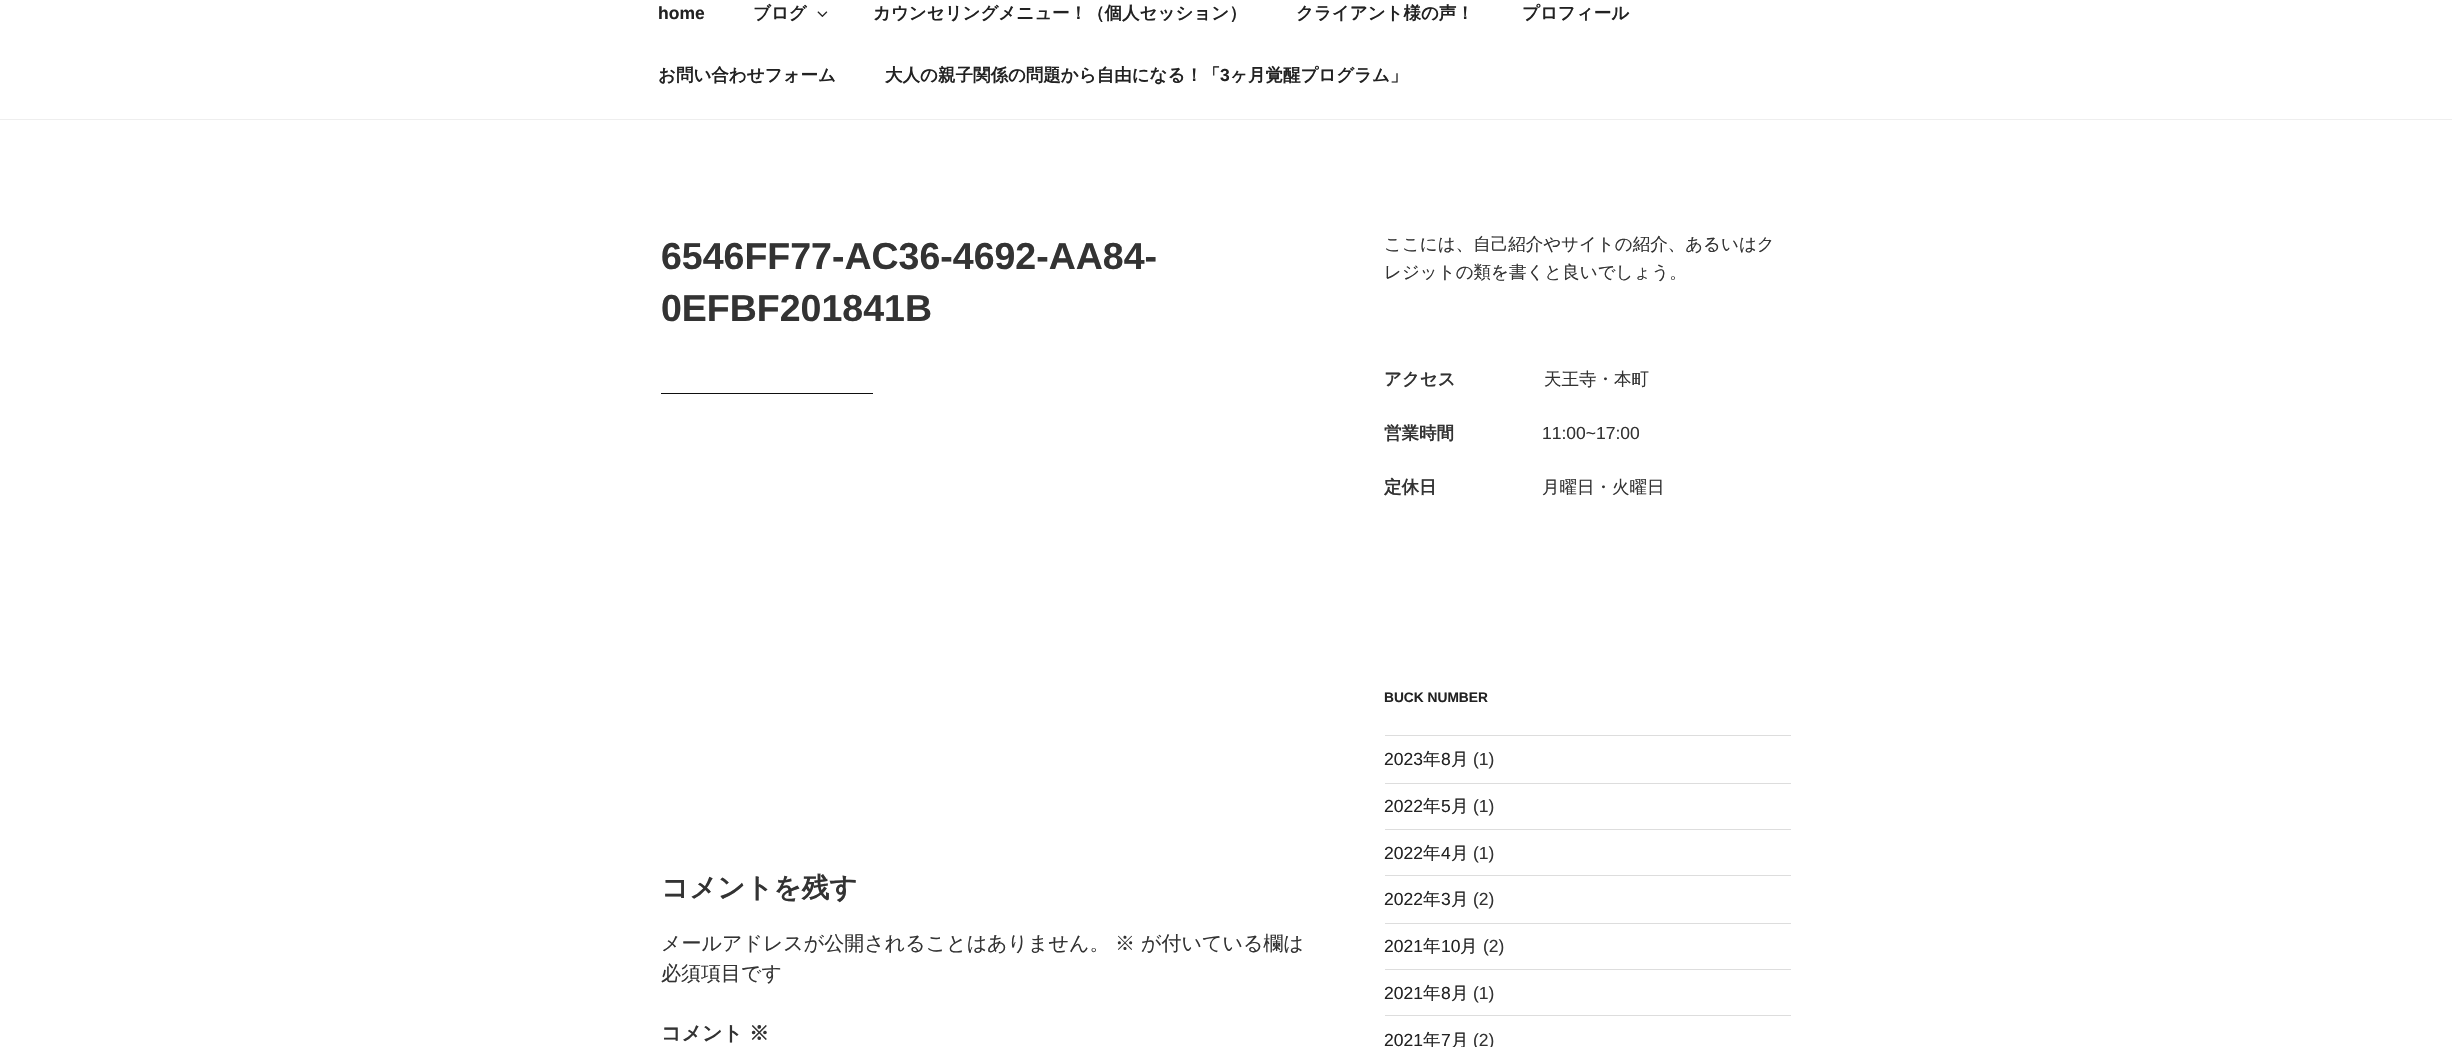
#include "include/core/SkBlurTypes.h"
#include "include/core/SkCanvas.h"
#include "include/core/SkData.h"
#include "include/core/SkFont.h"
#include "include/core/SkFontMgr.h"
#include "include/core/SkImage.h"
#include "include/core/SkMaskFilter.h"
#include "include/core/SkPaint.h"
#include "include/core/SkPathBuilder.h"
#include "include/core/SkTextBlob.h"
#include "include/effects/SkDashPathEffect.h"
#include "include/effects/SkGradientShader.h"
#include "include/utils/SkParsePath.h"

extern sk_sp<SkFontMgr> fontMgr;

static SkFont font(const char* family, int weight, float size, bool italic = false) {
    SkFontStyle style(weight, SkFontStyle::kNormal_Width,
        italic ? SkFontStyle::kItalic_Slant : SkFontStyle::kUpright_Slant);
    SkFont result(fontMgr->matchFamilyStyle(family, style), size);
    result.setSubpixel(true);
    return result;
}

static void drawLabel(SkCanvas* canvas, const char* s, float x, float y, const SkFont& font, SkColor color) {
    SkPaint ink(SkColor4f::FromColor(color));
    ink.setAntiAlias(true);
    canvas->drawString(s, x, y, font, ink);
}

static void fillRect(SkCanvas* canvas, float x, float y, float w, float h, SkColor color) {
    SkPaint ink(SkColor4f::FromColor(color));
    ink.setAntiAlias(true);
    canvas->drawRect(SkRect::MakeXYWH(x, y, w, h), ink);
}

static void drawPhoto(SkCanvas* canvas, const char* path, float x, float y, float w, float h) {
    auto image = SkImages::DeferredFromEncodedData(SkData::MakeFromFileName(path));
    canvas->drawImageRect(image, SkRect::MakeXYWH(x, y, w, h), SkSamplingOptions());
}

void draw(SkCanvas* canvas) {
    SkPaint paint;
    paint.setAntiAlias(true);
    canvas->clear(0xFFFFFFFF);
    fillRect(canvas, 0, 119, 2452, 1, 0xFFEEEEEE);
    SkFont font1 = font("Liberation Sans", 700, 17.5f);
    drawLabel(canvas, "home", 658, 19, font1, 0xFF222222);
    SkFont font2 = font("WenQuanYi Zen Hei", 700, 17.5f);
    drawLabel(canvas, "ブログ", 753, 19, font2, 0xFF222222);
    drawPhoto(canvas, "assets/img1.png", 817, 11, 11, 6);
    drawLabel(canvas, "カウンセリングメニュー！（個人セッション）", 873, 19, font2, 0xFF222222);
    drawLabel(canvas, "クライアント様の声！", 1296, 19, font2, 0xFF222222);
    drawLabel(canvas, "プロフィール", 1522, 19, font2, 0xFF222222);
    drawLabel(canvas, "お問い合わせフォーム", 658, 81, font2, 0xFF222222);
    drawLabel(canvas, "大人の親子関係の問題から自由になる！「", 885, 81, font2, 0xFF222222);
    drawLabel(canvas, "3", 1220, 81, font1, 0xFF222222);
    drawLabel(canvas, "ヶ月覚醒プログラム」", 1230, 81, font2, 0xFF222222);
    SkFont font3 = font("Liberation Sans", 700, 37.5f);
    drawLabel(canvas, "6546FF77-AC36-4692-AA84-", 661, 269, font3, 0xFF333333);
    drawLabel(canvas, "0EFBF201841B", 661, 321, font3, 0xFF333333);
    fillRect(canvas, 661, 393, 212, 1, 0xFF0F0F0F);
    SkFont font4 = font("WenQuanYi Zen Hei", 700, 27.5f);
    drawLabel(canvas, "コメントを残す", 661, 897, font4, 0xFF333333);
    SkFont font5 = font("WenQuanYi Zen Hei", 500, 20);
    drawLabel(canvas, "メールアドレスが公開されることはありません。", 661, 950, font5, 0xFF333333);
    drawLabel(canvas, "※", 1115, 950, font5, 0xFF333333);
    drawLabel(canvas, "が付いている欄は", 1141, 950, font5, 0xFF333333);
    drawLabel(canvas, "必須項目です", 661, 980, font5, 0xFF333333);
    SkFont font6 = font("WenQuanYi Zen Hei", 700, 20);
    drawLabel(canvas, "コメント", 661, 1040, font6, 0xFF333333);
    drawLabel(canvas, "※", 749, 1040, font6, 0xFF333333);
    SkFont font7 = font("WenQuanYi Zen Hei", 500, 17.5f);
    drawLabel(canvas, "ここには、自己紹介やサイトの紹介、あるいはク", 1384, 250, font7, 0xFF333333);
    drawLabel(canvas, "レジットの類を書くと良いでしょう。", 1384, 278, font7, 0xFF333333);
    drawLabel(canvas, "アクセス", 1384, 385, font2, 0xFF333333);
    drawLabel(canvas, "天王寺・本町", 1544, 385, font7, 0xFF333333);
    drawLabel(canvas, "営業時間", 1384, 439, font2, 0xFF333333);
    SkFont font8 = font("Liberation Sans", 400, 17.5f);
    drawLabel(canvas, "11:00~17:00", 1542, 439, font8, 0xFF333333);
    drawLabel(canvas, "定休日", 1384, 493, font2, 0xFF333333);
    drawLabel(canvas, "月曜日・火曜日", 1542, 493, font7, 0xFF333333);
    SkFont font9 = font("Liberation Sans", 700, 13.75f);
    drawLabel(canvas, "BUCK NUMBER", 1384, 702, font9, 0xFF222222);
    fillRect(canvas, 1385, 735, 406, 1, 0xFFDDDDDD);
    fillRect(canvas, 1385, 783, 406, 1, 0xFFDDDDDD);
    drawLabel(canvas, "2023", 1384, 765, font8, 0xFF222222);
    drawLabel(canvas, "年", 1423, 765, font7, 0xFF222222);
    drawLabel(canvas, "8", 1441, 765, font8, 0xFF222222);
    drawLabel(canvas, "月", 1451, 765, font7, 0xFF222222);
    drawLabel(canvas, "(1)", 1473, 765, font8, 0xFF333333);
    fillRect(canvas, 1385, 829, 406, 1, 0xFFDDDDDD);
    drawLabel(canvas, "2022", 1384, 812, font8, 0xFF222222);
    drawLabel(canvas, "年", 1423, 812, font7, 0xFF222222);
    drawLabel(canvas, "5", 1441, 812, font8, 0xFF222222);
    drawLabel(canvas, "月", 1451, 812, font7, 0xFF222222);
    drawLabel(canvas, "(1)", 1473, 812, font8, 0xFF333333);
    fillRect(canvas, 1385, 875, 406, 1, 0xFFDDDDDD);
    drawLabel(canvas, "2022", 1384, 859, font8, 0xFF222222);
    drawLabel(canvas, "年", 1423, 859, font7, 0xFF222222);
    drawLabel(canvas, "4", 1441, 859, font8, 0xFF222222);
    drawLabel(canvas, "月", 1451, 859, font7, 0xFF222222);
    drawLabel(canvas, "(1)", 1473, 859, font8, 0xFF333333);
    fillRect(canvas, 1385, 923, 406, 1, 0xFFDDDDDD);
    drawLabel(canvas, "2022", 1384, 905, font8, 0xFF222222);
    drawLabel(canvas, "年", 1423, 905, font7, 0xFF222222);
    drawLabel(canvas, "3", 1441, 905, font8, 0xFF222222);
    drawLabel(canvas, "月", 1451, 905, font7, 0xFF222222);
    drawLabel(canvas, "(2)", 1473, 905, font8, 0xFF333333);
    fillRect(canvas, 1385, 969, 406, 1, 0xFFDDDDDD);
    drawLabel(canvas, "2021", 1384, 952, font8, 0xFF222222);
    drawLabel(canvas, "年", 1423, 952, font7, 0xFF222222);
    drawLabel(canvas, "10", 1441, 952, font8, 0xFF222222);
    drawLabel(canvas, "月", 1460, 952, font7, 0xFF222222);
    drawLabel(canvas, "(2)", 1483, 952, font8, 0xFF333333);
    fillRect(canvas, 1385, 1015, 406, 1, 0xFFDDDDDD);
    drawLabel(canvas, "2021", 1384, 999, font8, 0xFF222222);
    drawLabel(canvas, "年", 1423, 999, font7, 0xFF222222);
    drawLabel(canvas, "8", 1441, 999, font8, 0xFF222222);
    drawLabel(canvas, "月", 1451, 999, font7, 0xFF222222);
    drawLabel(canvas, "(1)", 1473, 999, font8, 0xFF333333);
    drawLabel(canvas, "2021", 1384, 1046, font8, 0xFF222222);
    drawLabel(canvas, "年", 1423, 1046, font7, 0xFF222222);
    drawLabel(canvas, "7", 1441, 1046, font8, 0xFF222222);
    drawLabel(canvas, "月", 1451, 1046, font7, 0xFF222222);
    drawLabel(canvas, "(2)", 1473, 1046, font8, 0xFF333333);
}
